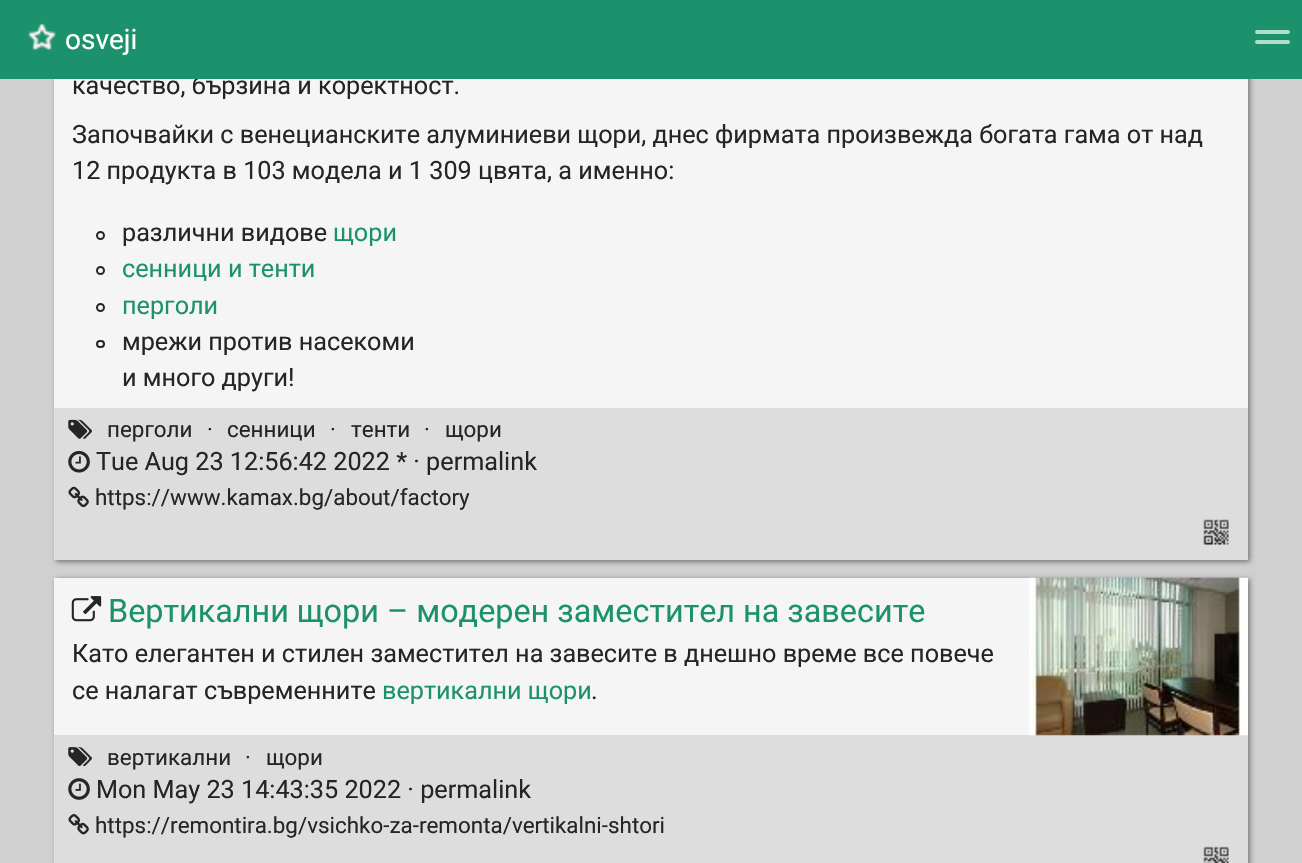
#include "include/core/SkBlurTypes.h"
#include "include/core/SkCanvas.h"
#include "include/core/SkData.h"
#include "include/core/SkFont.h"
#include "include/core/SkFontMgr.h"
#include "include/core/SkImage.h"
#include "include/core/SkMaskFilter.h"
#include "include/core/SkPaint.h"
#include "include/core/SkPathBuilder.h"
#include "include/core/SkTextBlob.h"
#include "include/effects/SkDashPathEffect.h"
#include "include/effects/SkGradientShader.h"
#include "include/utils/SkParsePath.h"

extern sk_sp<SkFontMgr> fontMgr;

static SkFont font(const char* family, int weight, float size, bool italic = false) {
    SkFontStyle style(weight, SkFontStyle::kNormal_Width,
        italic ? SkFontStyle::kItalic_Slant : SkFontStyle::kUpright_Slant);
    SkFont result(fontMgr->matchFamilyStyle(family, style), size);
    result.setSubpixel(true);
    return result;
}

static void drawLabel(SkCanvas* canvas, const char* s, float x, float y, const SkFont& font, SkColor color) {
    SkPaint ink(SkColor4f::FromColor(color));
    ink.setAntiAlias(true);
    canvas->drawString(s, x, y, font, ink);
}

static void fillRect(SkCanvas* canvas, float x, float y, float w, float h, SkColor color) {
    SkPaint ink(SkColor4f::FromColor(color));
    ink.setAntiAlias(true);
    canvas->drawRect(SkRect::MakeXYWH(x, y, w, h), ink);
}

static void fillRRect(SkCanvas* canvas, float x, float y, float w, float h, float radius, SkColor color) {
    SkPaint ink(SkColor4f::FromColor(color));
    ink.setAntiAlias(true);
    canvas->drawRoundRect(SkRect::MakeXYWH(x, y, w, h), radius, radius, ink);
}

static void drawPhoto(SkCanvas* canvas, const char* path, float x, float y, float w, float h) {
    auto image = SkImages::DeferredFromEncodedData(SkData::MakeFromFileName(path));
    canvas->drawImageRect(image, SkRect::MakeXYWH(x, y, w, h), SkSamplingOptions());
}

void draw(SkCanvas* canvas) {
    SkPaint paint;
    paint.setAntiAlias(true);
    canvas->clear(0xFFD0D0D0);
    paint.setColor(0xFF797979);
    paint.setMaskFilter(SkMaskFilter::MakeBlur(kNormal_SkBlurStyle, 2.5f));
    canvas->drawRect(SkRect::MakeXYWH(56, -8, 1194, 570), paint);
    paint.setMaskFilter(nullptr);
    fillRect(canvas, 54, 79, 1194, 329, 0xFFF5F5F5);
    SkFont font1 = font("Roboto", 400, 25.2f);
    drawLabel(canvas, "качество, бързина и коректност.", 72, 94, font1, 0xFF252525);
    fillRect(canvas, 0, 0, 1302, 79, 0xFF1B926C);
    drawPhoto(canvas, "assets/img1.png", 28, 23, 28, 28);
    SkFont font2 = font("Roboto", 400, 28);
    drawLabel(canvas, "osveji", 65, 49, font2, 0xFFFFFFFF);
    fillRRect(canvas, 1255, 30, 35, 4, 2, 0xFFB0DDCE);
    fillRRect(canvas, 1255, 40, 35, 4, 2, 0xFFB0DDCE);
    drawLabel(canvas, "Започвайки с венецианските алуминиеви щори, днес фирмата произвежда богата гама от над", 72, 143, font1, 0xFF252525);
    drawLabel(canvas, "12 продукта в 103 модела и 1 309 цвята, а именно:", 72, 179, font1, 0xFF252525);
    paint.setStroke(true);
    paint.setStrokeWidth(2);
    paint.setColor(0xFF252525);
    canvas->drawCircle(100.5f, 235.5f, 3.5f, paint);
    drawLabel(canvas, "различни видове", 122, 241, font1, 0xFF252525);
    drawLabel(canvas, "щори", 333, 241, font1, 0xFF1B926C);
    canvas->drawCircle(100.5f, 270.5f, 3.5f, paint);
    drawLabel(canvas, "сенници и тенти", 122, 277, font1, 0xFF1B926C);
    canvas->drawCircle(100.5f, 307.5f, 3.5f, paint);
    drawLabel(canvas, "перголи", 122, 314, font1, 0xFF1B926C);
    canvas->drawRoundRect(SkRect::MakeXYWH(97, 341, 7, 6), 3, 3, paint);
    drawLabel(canvas, "мрежи против насекоми", 122, 350, font1, 0xFF252525);
    drawLabel(canvas, "и много други!", 122, 386, font1, 0xFF252525);
    fillRect(canvas, 54, 408, 1194, 152, 0xFFDDDDDD);
    drawPhoto(canvas, "assets/img2.png", 68, 419, 24, 20);
    SkFont font3 = font("Roboto", 400, 22.4f);
    drawLabel(canvas, "перголи", 107, 437, font3, 0xFF252525);
    drawLabel(canvas, "·", 207, 437, font3, 0xFF252525);
    drawLabel(canvas, "сенници", 227, 437, font3, 0xFF252525);
    drawLabel(canvas, "·", 330, 437, font3, 0xFF252525);
    drawLabel(canvas, "тенти", 351, 437, font3, 0xFF252525);
    drawLabel(canvas, "·", 424, 437, font3, 0xFF252525);
    drawLabel(canvas, "щори", 445, 437, font3, 0xFF252525);
    drawPhoto(canvas, "assets/img3.png", 68, 450, 22, 23);
    drawLabel(canvas, "Tue Aug 23 12:56:42 2022 * · permalink", 96, 470, font1, 0xFF252525);
    drawPhoto(canvas, "assets/img4.png", 68, 486, 21, 22);
    drawLabel(canvas, "https://www.kamax.bg/about/factory", 95, 505, font3, 0xFF252525);
    drawPhoto(canvas, "assets/img5.png", 1203, 519, 26, 26);
    paint.setStroke(false);
    paint.setColor(0xFF797979);
    paint.setMaskFilter(SkMaskFilter::MakeBlur(kNormal_SkBlurStyle, 2.5f));
    canvas->drawRect(SkRect::MakeXYWH(56, 579, 1194, 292), paint);
    paint.setMaskFilter(nullptr);
    fillRect(canvas, 54, 578, 1194, 157, 0xFFF5F5F5);
    drawPhoto(canvas, "assets/img6.png", 71, 596, 31, 26);
    SkFont font4 = font("Roboto", 400, 32.35f);
    drawLabel(canvas, "Вертикални щори – модерен заместител на завесите", 108, 622, font4, 0xFF1B926C);
    fillRect(canvas, 54, 735, 1194, 128, 0xFFDDDDDD);
    drawPhoto(canvas, "assets/img7.png", 1029, 577, 219, 159);
    drawLabel(canvas, "Като елегантен и стилен заместител на завесите в днешно време все повече", 72, 662, font1, 0xFF252525);
    drawLabel(canvas, "се налагат съвременните", 72, 699, font1, 0xFF252525);
    drawLabel(canvas, "вертикални щори", 382, 699, font1, 0xFF1B926C);
    drawLabel(canvas, ".", 591, 699, font1, 0xFF252525);
    drawPhoto(canvas, "assets/img8.png", 68, 747, 24, 20);
    drawLabel(canvas, "вертикални", 107, 765, font3, 0xFF252525);
    drawLabel(canvas, "·", 245, 765, font3, 0xFF252525);
    drawLabel(canvas, "щори", 266, 765, font3, 0xFF252525);
    drawPhoto(canvas, "assets/img9.png", 68, 778, 22, 22);
    drawLabel(canvas, "Mon May 23 14:43:35 2022 · permalink", 96, 798, font1, 0xFF252525);
    drawPhoto(canvas, "assets/img10.png", 68, 814, 21, 21);
    drawLabel(canvas, "https://remontira.bg/vsichko-za-remonta/vertikalni-shtori", 95, 833, font3, 0xFF252525);
    drawPhoto(canvas, "assets/img11.png", 1203, 846, 26, 17);
}
